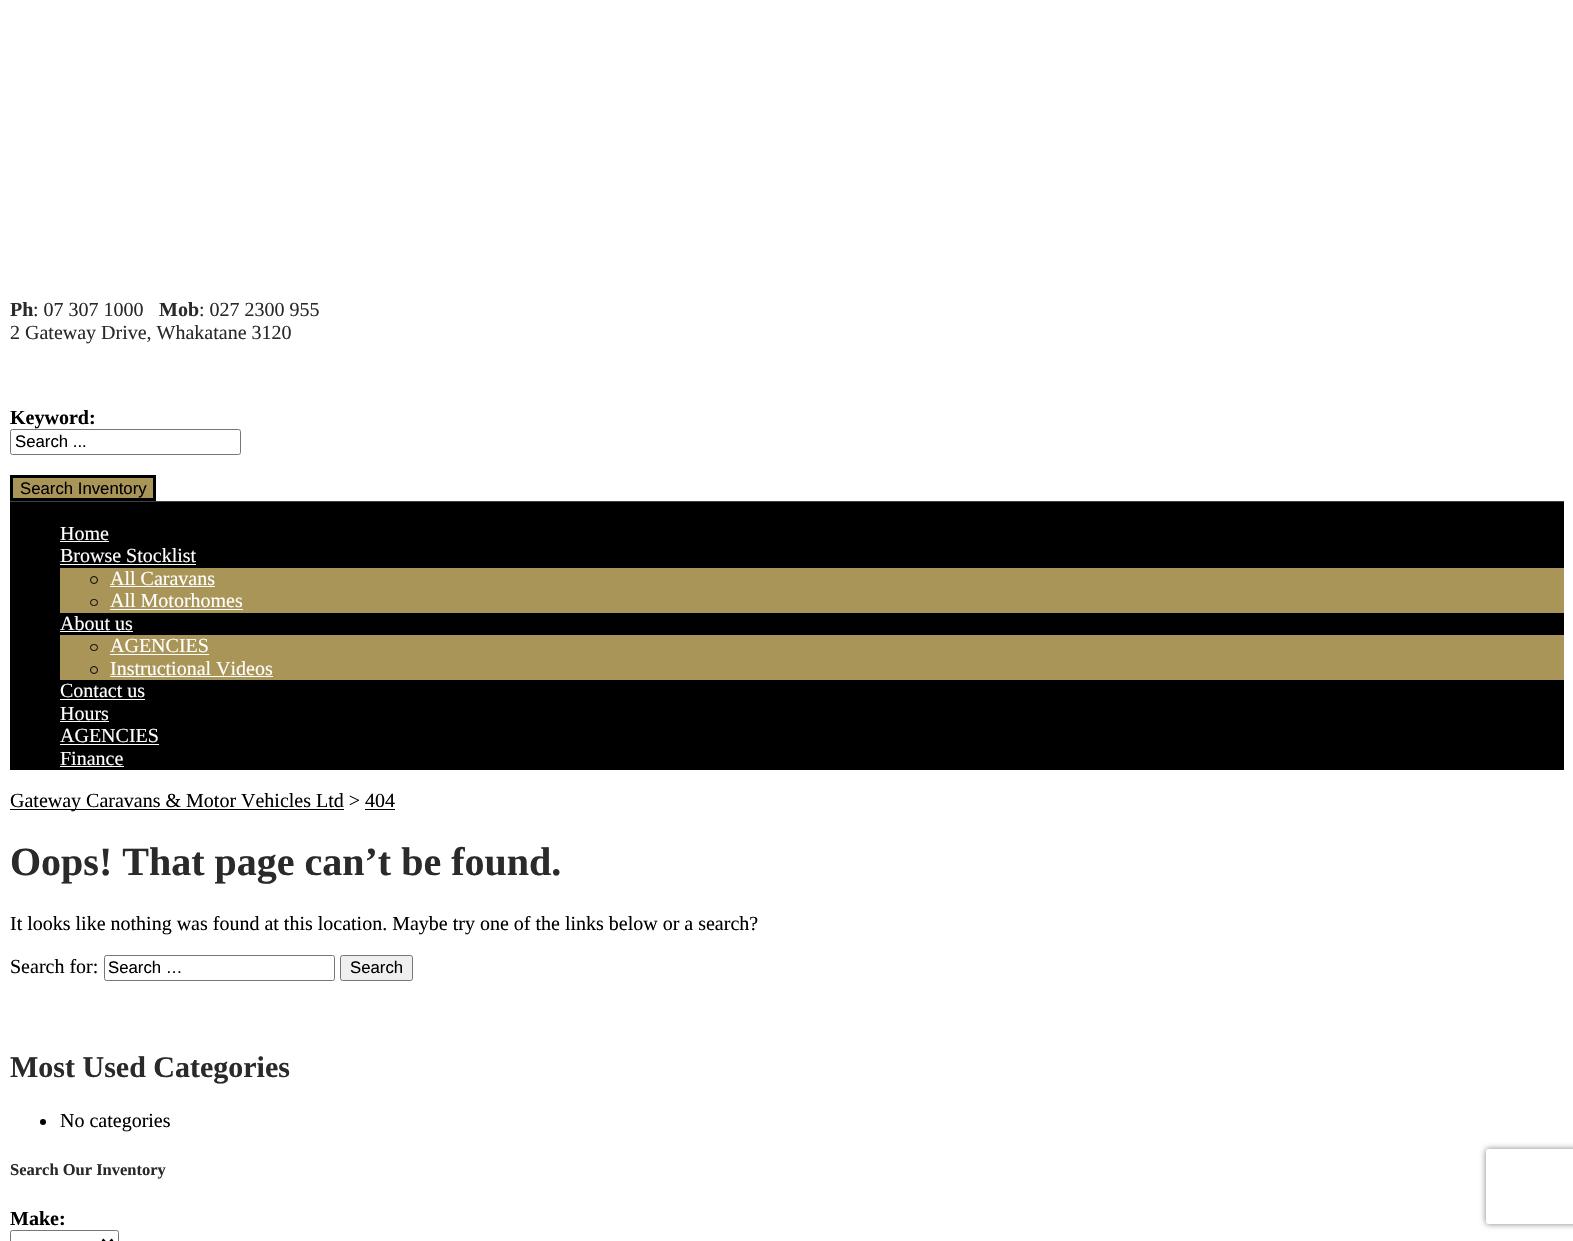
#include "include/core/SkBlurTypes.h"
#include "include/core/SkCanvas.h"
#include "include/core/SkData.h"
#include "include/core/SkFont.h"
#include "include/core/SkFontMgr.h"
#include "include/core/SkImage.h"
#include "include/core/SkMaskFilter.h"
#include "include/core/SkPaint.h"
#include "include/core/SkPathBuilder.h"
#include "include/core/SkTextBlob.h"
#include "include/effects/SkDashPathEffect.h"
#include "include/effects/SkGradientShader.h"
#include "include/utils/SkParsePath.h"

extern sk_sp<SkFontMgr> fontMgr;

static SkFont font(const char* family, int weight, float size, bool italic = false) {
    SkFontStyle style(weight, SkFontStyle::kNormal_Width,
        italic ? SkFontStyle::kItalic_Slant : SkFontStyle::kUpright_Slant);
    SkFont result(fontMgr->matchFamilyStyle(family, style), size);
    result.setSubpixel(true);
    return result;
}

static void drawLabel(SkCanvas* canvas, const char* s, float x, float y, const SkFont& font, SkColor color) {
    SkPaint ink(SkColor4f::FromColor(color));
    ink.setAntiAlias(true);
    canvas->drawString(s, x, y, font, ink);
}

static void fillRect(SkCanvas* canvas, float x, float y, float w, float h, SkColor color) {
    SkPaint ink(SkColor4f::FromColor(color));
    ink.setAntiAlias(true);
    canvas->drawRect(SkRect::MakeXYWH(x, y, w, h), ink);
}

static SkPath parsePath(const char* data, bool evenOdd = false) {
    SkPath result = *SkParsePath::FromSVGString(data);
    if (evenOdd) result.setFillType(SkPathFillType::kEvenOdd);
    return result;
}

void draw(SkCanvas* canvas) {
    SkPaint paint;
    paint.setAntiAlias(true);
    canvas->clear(0xFFFFFFFF);
    SkFont font1 = font("Liberation Serif", 700, 20);
    drawLabel(canvas, "Ph", 10, 316, font1, 0xFF2A2A2A);
    SkFont font2 = font("Liberation Serif", 400, 20);
    drawLabel(canvas, ": 07 307 1000", 33, 316, font2, 0xFF2A2A2A);
    drawLabel(canvas, "Mob", 159, 316, font1, 0xFF2A2A2A);
    drawLabel(canvas, ": 027 2300 955", 199, 316, font2, 0xFF2A2A2A);
    drawLabel(canvas, "2 Gateway Drive, Whakatane 3120", 10, 339, font2, 0xFF2A2A2A);
    drawLabel(canvas, "Keyword:", 10, 424, font1, 0xFF000000);
    paint.setStroke(true);
    paint.setStrokeWidth(1);
    paint.setColor(0xFF767676);
    canvas->drawRoundRect(SkRect::MakeXYWH(10.5f, 429.5f, 230, 25), 2, 2, paint);
    SkFont font3 = font("Liberation Sans", 400, 16.75f);
    drawLabel(canvas, "Search ...", 15, 447, font3, 0xFF000000);
    paint.setStroke(false);
    paint.setColor(0xFFA89557);
    canvas->drawRect(SkRect::MakeXYWH(11.5f, 476.5f, 143, 23), paint);
    paint.setStroke(true);
    paint.setStrokeWidth(3);
    paint.setColor(0xFF000000);
    canvas->drawRect(SkRect::MakeXYWH(11.5f, 476.5f, 143, 23), paint);
    drawLabel(canvas, "Search Inventory", 20, 494, font3, 0xFF000000);
    fillRect(canvas, 10, 502, 1554, 268, 0xFF000000);
    fillRect(canvas, 10, 501, 1554, 1, 0xFF404040);
    drawLabel(canvas, "Home", 60, 540, font2, 0xFFFFFFFF);
    fillRect(canvas, 60, 541, 49, 1, 0xFFFFFFFF);
    drawLabel(canvas, "Browse Stocklist", 60, 562, font2, 0xFFFFFFFF);
    fillRect(canvas, 60, 564, 136, 1, 0xFFFFFFFF);
    fillRect(canvas, 60, 568, 1504, 45, 0xFFA89557);
    paint.setStrokeWidth(1);
    canvas->drawCircle(94, 580, 3.5f, paint);
    drawLabel(canvas, "All Caravans", 110, 585, font2, 0xFFFFFFFF);
    fillRect(canvas, 110, 586, 105, 1, 0xFFFFFFFF);
    canvas->drawRoundRect(SkRect::MakeXYWH(90.5f, 599.5f, 7, 6), 3, 3, paint);
    drawLabel(canvas, "All Motorhomes", 110, 607, font2, 0xFFFFFFFF);
    fillRect(canvas, 110, 609, 133, 1, 0xFFFFFFFF);
    drawLabel(canvas, "About us", 60, 630, font2, 0xFFFFFFFF);
    fillRect(canvas, 60, 631, 73, 1, 0xFFFFFFFF);
    fillRect(canvas, 60, 635, 1504, 45, 0xFFA89557);
    canvas->drawRoundRect(SkRect::MakeXYWH(90.5f, 644.5f, 7, 6), 3, 3, paint);
    drawLabel(canvas, "AGENCIES", 110, 652, font2, 0xFFFFFFFF);
    fillRect(canvas, 110, 654, 99, 1, 0xFFFFFFFF);
    canvas->drawCircle(94, 670, 3.5f, paint);
    drawLabel(canvas, "Instructional Videos", 110, 675, font2, 0xFFFFFFFF);
    fillRect(canvas, 110, 676, 163, 1, 0xFFFFFFFF);
    drawLabel(canvas, "Contact us", 60, 697, font2, 0xFFFFFFFF);
    fillRect(canvas, 60, 699, 85, 1, 0xFFFFFFFF);
    drawLabel(canvas, "Hours", 60, 720, font2, 0xFFFFFFFF);
    fillRect(canvas, 60, 721, 49, 1, 0xFFFFFFFF);
    drawLabel(canvas, "AGENCIES", 60, 742, font2, 0xFFFFFFFF);
    fillRect(canvas, 60, 744, 99, 1, 0xFFFFFFFF);
    drawLabel(canvas, "Finance", 60, 765, font2, 0xFFFFFFFF);
    fillRect(canvas, 60, 766, 64, 1, 0xFFFFFFFF);
    fillRect(canvas, 10, 809, 334, 1, 0xFF000000);
    drawLabel(canvas, "Gateway Caravans & Motor Vehicles Ltd > 404", 10, 807, font2, 0xFF000000);
    fillRect(canvas, 365, 809, 30, 1, 0xFF000000);
    SkFont font4 = font("Liberation Serif", 700, 40);
    drawLabel(canvas, "Oops! That page can’t be found.", 10, 875, font4, 0xFF2A2A2A);
    drawLabel(canvas, "It looks like nothing was found at this location. Maybe try one of the links below or a search?", 10, 930, font2, 0xFF000000);
    drawLabel(canvas, "Search for:", 10, 973, font2, 0xFF000000);
    paint.setColor(0xFF767676);
    canvas->drawRoundRect(SkRect::MakeXYWH(104.5f, 955.5f, 230, 25), 2, 2, paint);
    drawLabel(canvas, "Search …", 108, 973, font3, 0xFF000000);
    paint.setStroke(false);
    paint.setColor(0xFFEFEFEF);
    canvas->drawRoundRect(SkRect::MakeXYWH(340.5f, 955.5f, 72, 25), 2, 2, paint);
    paint.setStroke(true);
    paint.setColor(0xFF767676);
    canvas->drawRoundRect(SkRect::MakeXYWH(340.5f, 955.5f, 72, 25), 2, 2, paint);
    drawLabel(canvas, "Search", 350, 973, font3, 0xFF000000);
    SkFont font5 = font("Liberation Serif", 700, 30);
    drawLabel(canvas, "Most Used Categories", 10, 1077, font5, 0xFF2A2A2A);
    paint.setStroke(false);
    paint.setColor(0xFF000000);
    canvas->drawCircle(43, 1122, 3, paint);
    drawLabel(canvas, "No categories", 60, 1127, font2, 0xFF000000);
    SkFont font6 = font("Liberation Serif", 700, 16.5f);
    drawLabel(canvas, "Search Our Inventory", 10, 1175, font6, 0xFF2A2A2A);
    drawLabel(canvas, "Make:", 10, 1225, font1, 0xFF000000);
    paint.setStroke(true);
    paint.setColor(0xFF767676);
    canvas->drawRoundRect(SkRect::MakeXYWH(10.5f, 1230.5f, 108, 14), 2, 2, paint);
    paint.setStrokeWidth(2.5f);
    paint.setColor(0xFF000000);
    canvas->drawPath(parsePath("M102.5 1239.5L107.5 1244.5L112.5 1239.5"), paint);
    canvas->save();
    canvas->clipPath(parsePath("M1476 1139H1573V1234H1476ZM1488.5 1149H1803.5C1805 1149 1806 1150 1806 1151.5V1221.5C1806 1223 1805 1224 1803.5 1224H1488.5C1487 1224 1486 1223 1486 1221.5V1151.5C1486 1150 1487 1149 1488.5 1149Z", true), true);
    paint.setStroke(false);
    paint.setColor(0xFF808080);
    paint.setMaskFilter(SkMaskFilter::MakeBlur(kNormal_SkBlurStyle, 3));
    canvas->drawRoundRect(SkRect::MakeXYWH(1486, 1149, 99, 75), 2.5f, 2.5f, paint);
    paint.setMaskFilter(nullptr);
    canvas->restore();
}
